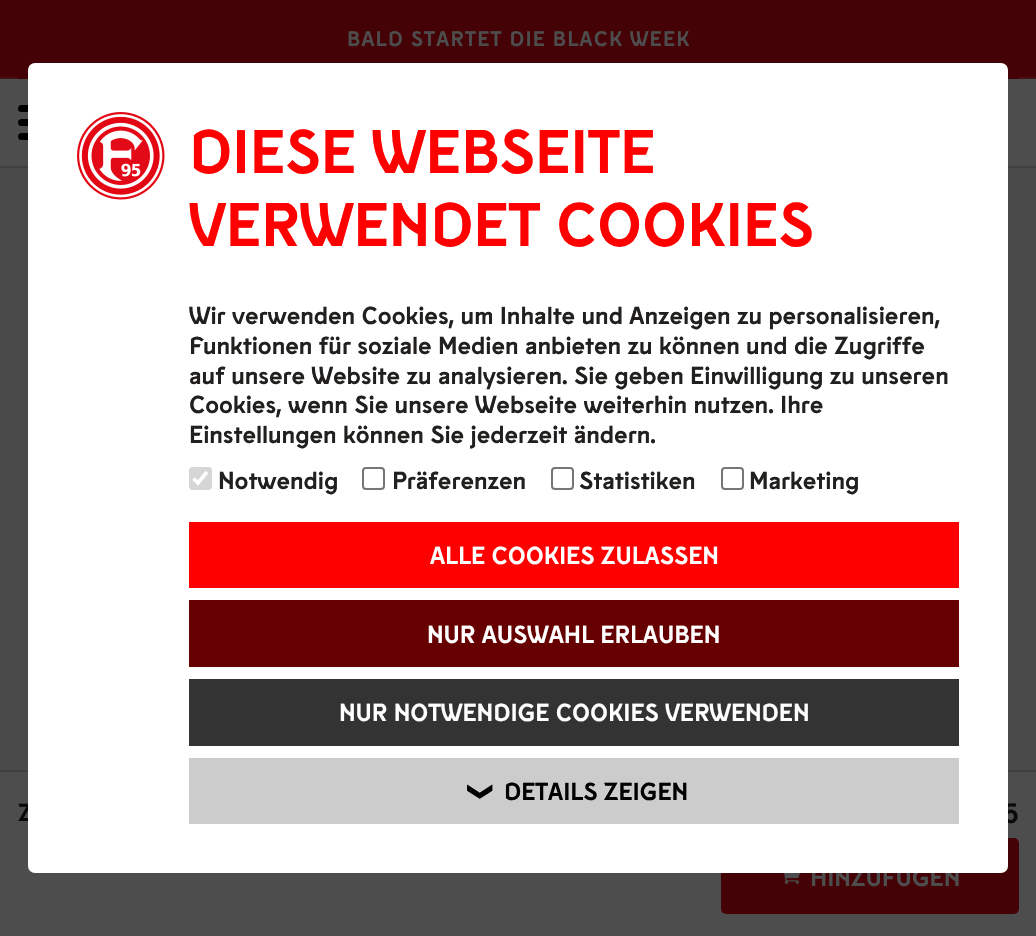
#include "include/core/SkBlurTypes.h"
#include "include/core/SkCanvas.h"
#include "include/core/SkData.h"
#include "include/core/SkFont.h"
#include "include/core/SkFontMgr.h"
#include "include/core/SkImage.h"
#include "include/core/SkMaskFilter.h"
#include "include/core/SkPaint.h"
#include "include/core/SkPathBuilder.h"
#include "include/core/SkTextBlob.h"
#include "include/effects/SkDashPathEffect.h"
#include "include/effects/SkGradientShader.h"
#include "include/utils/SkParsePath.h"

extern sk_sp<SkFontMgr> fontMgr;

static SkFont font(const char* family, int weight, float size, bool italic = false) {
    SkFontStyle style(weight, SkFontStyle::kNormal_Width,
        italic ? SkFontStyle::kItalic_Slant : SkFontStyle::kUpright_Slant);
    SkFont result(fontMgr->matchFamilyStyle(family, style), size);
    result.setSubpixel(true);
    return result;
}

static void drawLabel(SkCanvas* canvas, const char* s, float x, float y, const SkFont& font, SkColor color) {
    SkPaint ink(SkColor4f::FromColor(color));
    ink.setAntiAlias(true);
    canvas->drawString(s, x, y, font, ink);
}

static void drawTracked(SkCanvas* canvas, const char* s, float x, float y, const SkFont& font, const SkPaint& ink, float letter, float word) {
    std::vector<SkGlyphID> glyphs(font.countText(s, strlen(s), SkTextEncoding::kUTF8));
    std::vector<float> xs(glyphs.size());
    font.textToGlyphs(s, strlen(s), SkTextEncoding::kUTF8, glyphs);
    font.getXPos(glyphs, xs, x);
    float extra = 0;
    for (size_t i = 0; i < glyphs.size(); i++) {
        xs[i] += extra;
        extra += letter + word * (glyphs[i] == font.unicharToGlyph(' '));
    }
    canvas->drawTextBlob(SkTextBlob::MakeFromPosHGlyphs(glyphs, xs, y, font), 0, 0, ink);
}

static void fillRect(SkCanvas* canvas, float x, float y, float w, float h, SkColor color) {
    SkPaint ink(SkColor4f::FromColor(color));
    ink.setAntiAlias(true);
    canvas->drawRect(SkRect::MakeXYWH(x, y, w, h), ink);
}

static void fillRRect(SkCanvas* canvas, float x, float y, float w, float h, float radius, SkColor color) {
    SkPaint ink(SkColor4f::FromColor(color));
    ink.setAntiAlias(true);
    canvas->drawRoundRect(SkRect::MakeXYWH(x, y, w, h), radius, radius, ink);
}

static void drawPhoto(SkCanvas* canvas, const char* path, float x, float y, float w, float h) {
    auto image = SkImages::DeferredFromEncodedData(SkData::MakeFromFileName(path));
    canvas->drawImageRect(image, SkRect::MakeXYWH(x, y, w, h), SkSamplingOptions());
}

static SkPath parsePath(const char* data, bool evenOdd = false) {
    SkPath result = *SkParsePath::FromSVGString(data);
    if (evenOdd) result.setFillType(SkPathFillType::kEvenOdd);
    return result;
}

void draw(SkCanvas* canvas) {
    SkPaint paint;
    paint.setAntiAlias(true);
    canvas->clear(0xFF4A4A4A);
    fillRect(canvas, 0, 79, 1036, 87, 0xFF4D4D4D);
    fillRect(canvas, 0, 166, 1036, 2, 0xFF404040);
    fillRect(canvas, 0, 0, 1036, 77, 0xFF440206);
    fillRect(canvas, 0, 77, 1036, 2, 0xFF461114);
    fillRect(canvas, 18, 77, 1001, 2, 0xFF440206);
    SkFont font1 = font("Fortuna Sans", 700, 21);
    paint.setColor(0xFF4D4D4D);
    drawTracked(canvas, "BALD STARTET DIE BLACK WEEK", 347, 46, font1, paint, 1.25f, 0);
    fillRRect(canvas, 18, 105, 45, 7, 3.5f, 0xFF000000);
    fillRRect(canvas, 18, 119, 45, 7, 3.5f, 0xFF000000);
    fillRRect(canvas, 18, 133, 45, 7, 3.5f, 0xFF000000);
    fillRect(canvas, 0, 772, 1036, 164, 0xFF4D4D4D);
    fillRect(canvas, 0, 770, 1036, 2, 0xFF404040);
    SkFont font2 = font("Fortuna Sans", 700, 24.5f);
    drawLabel(canvas, "Z", 18, 821, font2, 0xFF0B0A0A);
    SkFont font3 = font("Fortuna Sans", 700, 28);
    drawLabel(canvas, "5", 1003, 823, font3, 0xFF0B0A0A);
    fillRRect(canvas, 721, 838, 298, 76, 5, 0xFF440206);
    drawLabel(canvas, "HINZUFÜGEN", 810, 886, font2, 0xFF4D4D4D);
    fillRRect(canvas, 28, 63, 980, 810, 7, 0xFFFFFFFF);
    drawPhoto(canvas, "assets/img1.png", 77, 112, 88, 88);
    SkFont font4 = font("Fortuna Sans", 700, 61.25f);
    drawLabel(canvas, "DIESE WEBSEITE", 189, 173, font4, 0xFFFF0000);
    drawLabel(canvas, "VERWENDET COOKIES", 189, 246, font4, 0xFFFF0000);
    drawLabel(canvas, "Wir verwenden Cookies, um Inhalte und Anzeigen zu personalisieren,", 189, 324, font2, 0xFF21201E);
    drawLabel(canvas, "Funktionen für soziale Medien anbieten zu können und die Zugriffe", 189, 354, font2, 0xFF21201E);
    drawLabel(canvas, "auf unsere Website zu analysieren. Sie geben Einwilligung zu unseren", 189, 384, font2, 0xFF21201E);
    drawLabel(canvas, "Cookies, wenn Sie unsere Webseite weiterhin nutzen. Ihre", 189, 413, font2, 0xFF21201E);
    drawLabel(canvas, "Einstellungen können Sie jederzeit ändern.", 189, 443, font2, 0xFF21201E);
    fillRRect(canvas, 189, 467, 23, 23, 4, 0xFFD6D6D6);
    paint.setStroke(true);
    paint.setStrokeWidth(3.6f);
    paint.setColor(0xFFFFFFFF);
    canvas->drawPath(parsePath("M193.5 478.5L198 483L207 472"), paint);
    drawLabel(canvas, "Notwendig", 218, 489, font2, 0xFF21201E);
    paint.setStrokeWidth(2);
    paint.setColor(0xFF767676);
    canvas->drawRoundRect(SkRect::MakeXYWH(363, 468, 21, 21), 3, 3, paint);
    drawLabel(canvas, "Präferenzen", 392, 489, font2, 0xFF21201E);
    canvas->drawRoundRect(SkRect::MakeXYWH(552, 468, 21, 21), 3, 3, paint);
    drawLabel(canvas, "Statistiken", 579, 489, font2, 0xFF21201E);
    canvas->drawRoundRect(SkRect::MakeXYWH(722, 468, 21, 21), 3, 3, paint);
    drawLabel(canvas, "Marketing", 749, 489, font2, 0xFF21201E);
    fillRect(canvas, 189, 522, 770, 66, 0xFFFF0000);
    drawLabel(canvas, "ALLE COOKIES ZULASSEN", 430, 564, font2, 0xFFFFFFFF);
    fillRect(canvas, 189, 600, 770, 67, 0xFF660000);
    drawLabel(canvas, "NUR AUSWAHL ERLAUBEN", 427, 643, font2, 0xFFFFFFFF);
    fillRect(canvas, 189, 679, 770, 67, 0xFF333333);
    drawLabel(canvas, "NUR NOTWENDIGE COOKIES VERWENDEN", 339, 721, font2, 0xFFFFFFFF);
    fillRect(canvas, 189, 758, 770, 66, 0xFFCCCCCC);
    SkFont font5 = font("DejaVu Sans", 700, 24.5f);
    canvas->save();
    canvas->rotate(90, 473, 781);
    drawLabel(canvas, "❯", 473, 781, font5, 0xFF000000);
    canvas->restore();
    drawLabel(canvas, "DETAILS ZEIGEN", 504, 800, font2, 0xFF000000);
    drawPhoto(canvas, "assets/img2.png", 784, 873, 17, 11);
}
